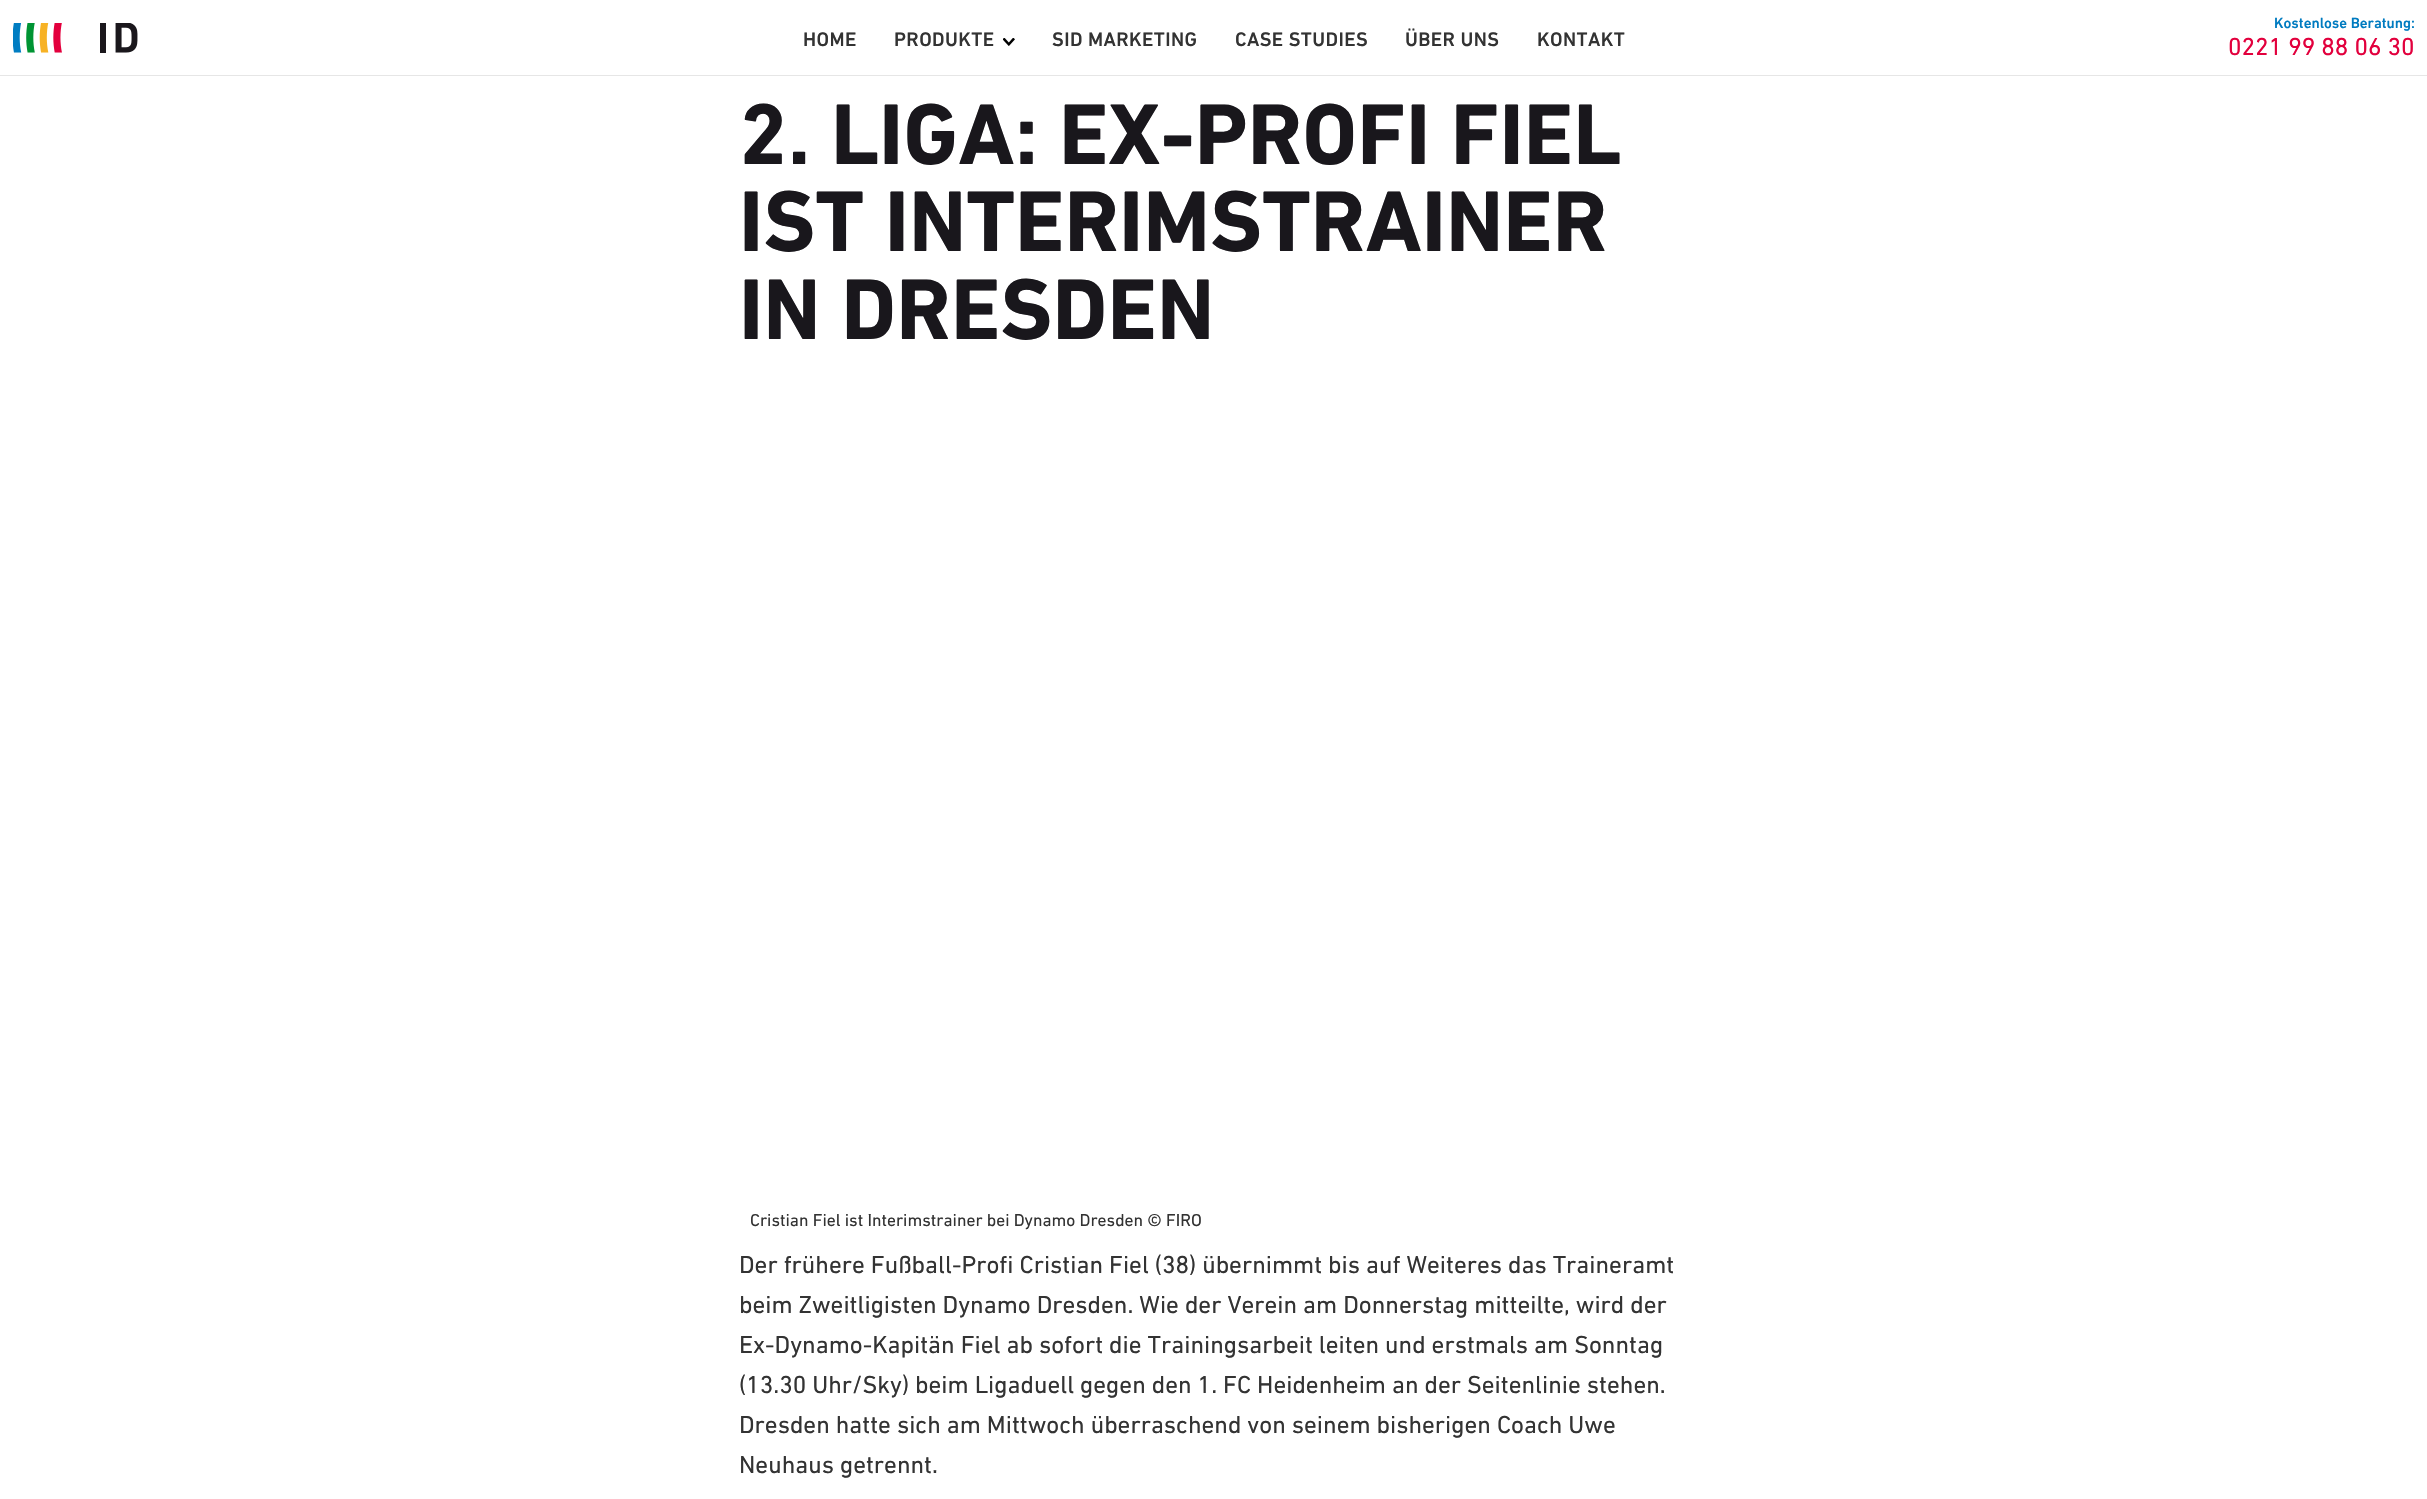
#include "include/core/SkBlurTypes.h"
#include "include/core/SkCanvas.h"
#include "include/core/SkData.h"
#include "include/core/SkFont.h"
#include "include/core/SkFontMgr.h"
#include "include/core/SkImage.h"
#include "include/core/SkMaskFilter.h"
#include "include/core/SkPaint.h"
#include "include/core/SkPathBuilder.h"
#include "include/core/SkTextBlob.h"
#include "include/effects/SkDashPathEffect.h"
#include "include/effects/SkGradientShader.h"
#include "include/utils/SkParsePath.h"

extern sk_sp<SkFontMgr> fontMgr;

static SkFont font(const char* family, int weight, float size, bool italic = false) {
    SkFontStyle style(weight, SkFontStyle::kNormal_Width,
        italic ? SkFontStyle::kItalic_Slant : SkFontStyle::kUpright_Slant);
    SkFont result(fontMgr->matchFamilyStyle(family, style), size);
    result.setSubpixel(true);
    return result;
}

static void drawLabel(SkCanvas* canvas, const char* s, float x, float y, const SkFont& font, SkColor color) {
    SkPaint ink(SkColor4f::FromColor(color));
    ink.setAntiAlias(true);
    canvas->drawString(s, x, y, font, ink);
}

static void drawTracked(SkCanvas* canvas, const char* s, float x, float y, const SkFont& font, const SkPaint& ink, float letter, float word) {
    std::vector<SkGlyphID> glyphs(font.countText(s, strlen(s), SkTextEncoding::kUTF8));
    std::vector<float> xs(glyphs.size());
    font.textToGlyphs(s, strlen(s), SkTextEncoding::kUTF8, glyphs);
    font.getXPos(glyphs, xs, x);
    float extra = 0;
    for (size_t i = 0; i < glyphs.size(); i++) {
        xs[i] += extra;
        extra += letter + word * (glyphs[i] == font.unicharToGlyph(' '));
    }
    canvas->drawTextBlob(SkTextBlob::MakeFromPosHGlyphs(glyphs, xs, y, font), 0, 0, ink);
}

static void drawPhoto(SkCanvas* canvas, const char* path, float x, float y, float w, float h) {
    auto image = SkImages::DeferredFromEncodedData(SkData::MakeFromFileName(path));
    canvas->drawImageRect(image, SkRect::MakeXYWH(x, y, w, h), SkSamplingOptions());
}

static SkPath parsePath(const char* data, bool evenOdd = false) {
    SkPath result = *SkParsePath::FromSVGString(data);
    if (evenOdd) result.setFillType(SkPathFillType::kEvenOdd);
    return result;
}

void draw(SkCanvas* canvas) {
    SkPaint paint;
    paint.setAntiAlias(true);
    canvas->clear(0xFFFFFFFF);
    paint.setColor(0xFFE6E6E6);
    canvas->drawPath(parsePath("M0 75V76H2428V1V75Z"), paint);
    drawPhoto(canvas, "assets/img1.png", 13, 23, 125, 30);
    SkFont font1 = font("DIN Next", 500, 20);
    paint.setColor(0xFF333333);
    drawTracked(canvas, "HOME", 803, 46, font1, paint, 0.4f, 0);
    drawTracked(canvas, "PRODUKTE", 894, 46, font1, paint, 0.4f, 0);
    drawPhoto(canvas, "assets/img2.png", 1003, 38, 12, 8);
    drawTracked(canvas, "SID MARKETING", 1052, 46, font1, paint, 0.4f, 0);
    drawTracked(canvas, "CASE STUDIES", 1235, 46, font1, paint, 0.4f, 0);
    drawTracked(canvas, "ÜBER UNS", 1405, 46, font1, paint, 0.4f, 0);
    drawTracked(canvas, "KONTAKT", 1537, 46, font1, paint, 0.4f, 0);
    SkFont font2 = font("DIN Next", 500, 15);
    drawLabel(canvas, "Kostenlose Beratung:", 2274, 28, font2, 0xFF007BC0);
    SkFont font3 = font("DIN Next", 400, 25);
    drawLabel(canvas, "0221 99 88 06 30", 2228, 55, font3, 0xFFE2003D);
    SkFont font4 = font("DIN Next", 700, 87.5f);
    drawLabel(canvas, "2. LIGA: EX-PROFI FIEL", 739, 164, font4, 0xFF19171C);
    drawLabel(canvas, "IST INTERIMSTRAINER", 739, 251, font4, 0xFF19171C);
    drawLabel(canvas, "IN DRESDEN", 739, 339, font4, 0xFF19171C);
    SkFont font5 = font("DIN Next", 400, 17.5f);
    drawLabel(canvas, "Cristian Fiel ist Interimstrainer bei Dynamo Dresden © FIRO", 750, 1226, font5, 0xFF333333);
    drawLabel(canvas, "Der frühere Fußball-Profi Cristian Fiel (38) übernimmt bis auf Weiteres das Traineramt", 739, 1273, font3, 0xFF333333);
    drawLabel(canvas, "beim Zweitligisten Dynamo Dresden. Wie der Verein am Donnerstag mitteilte, wird der", 739, 1313, font3, 0xFF333333);
    drawLabel(canvas, "Ex-Dynamo-Kapitän Fiel ab sofort die Trainingsarbeit leiten und erstmals am Sonntag", 739, 1353, font3, 0xFF333333);
    drawLabel(canvas, "(13.30 Uhr/Sky) beim Ligaduell gegen den 1. FC Heidenheim an der Seitenlinie stehen.", 739, 1393, font3, 0xFF333333);
    drawLabel(canvas, "Dresden hatte sich am Mittwoch überraschend von seinem bisherigen Coach Uwe", 739, 1433, font3, 0xFF333333);
    drawLabel(canvas, "Neuhaus getrennt.", 739, 1473, font3, 0xFF333333);
}
